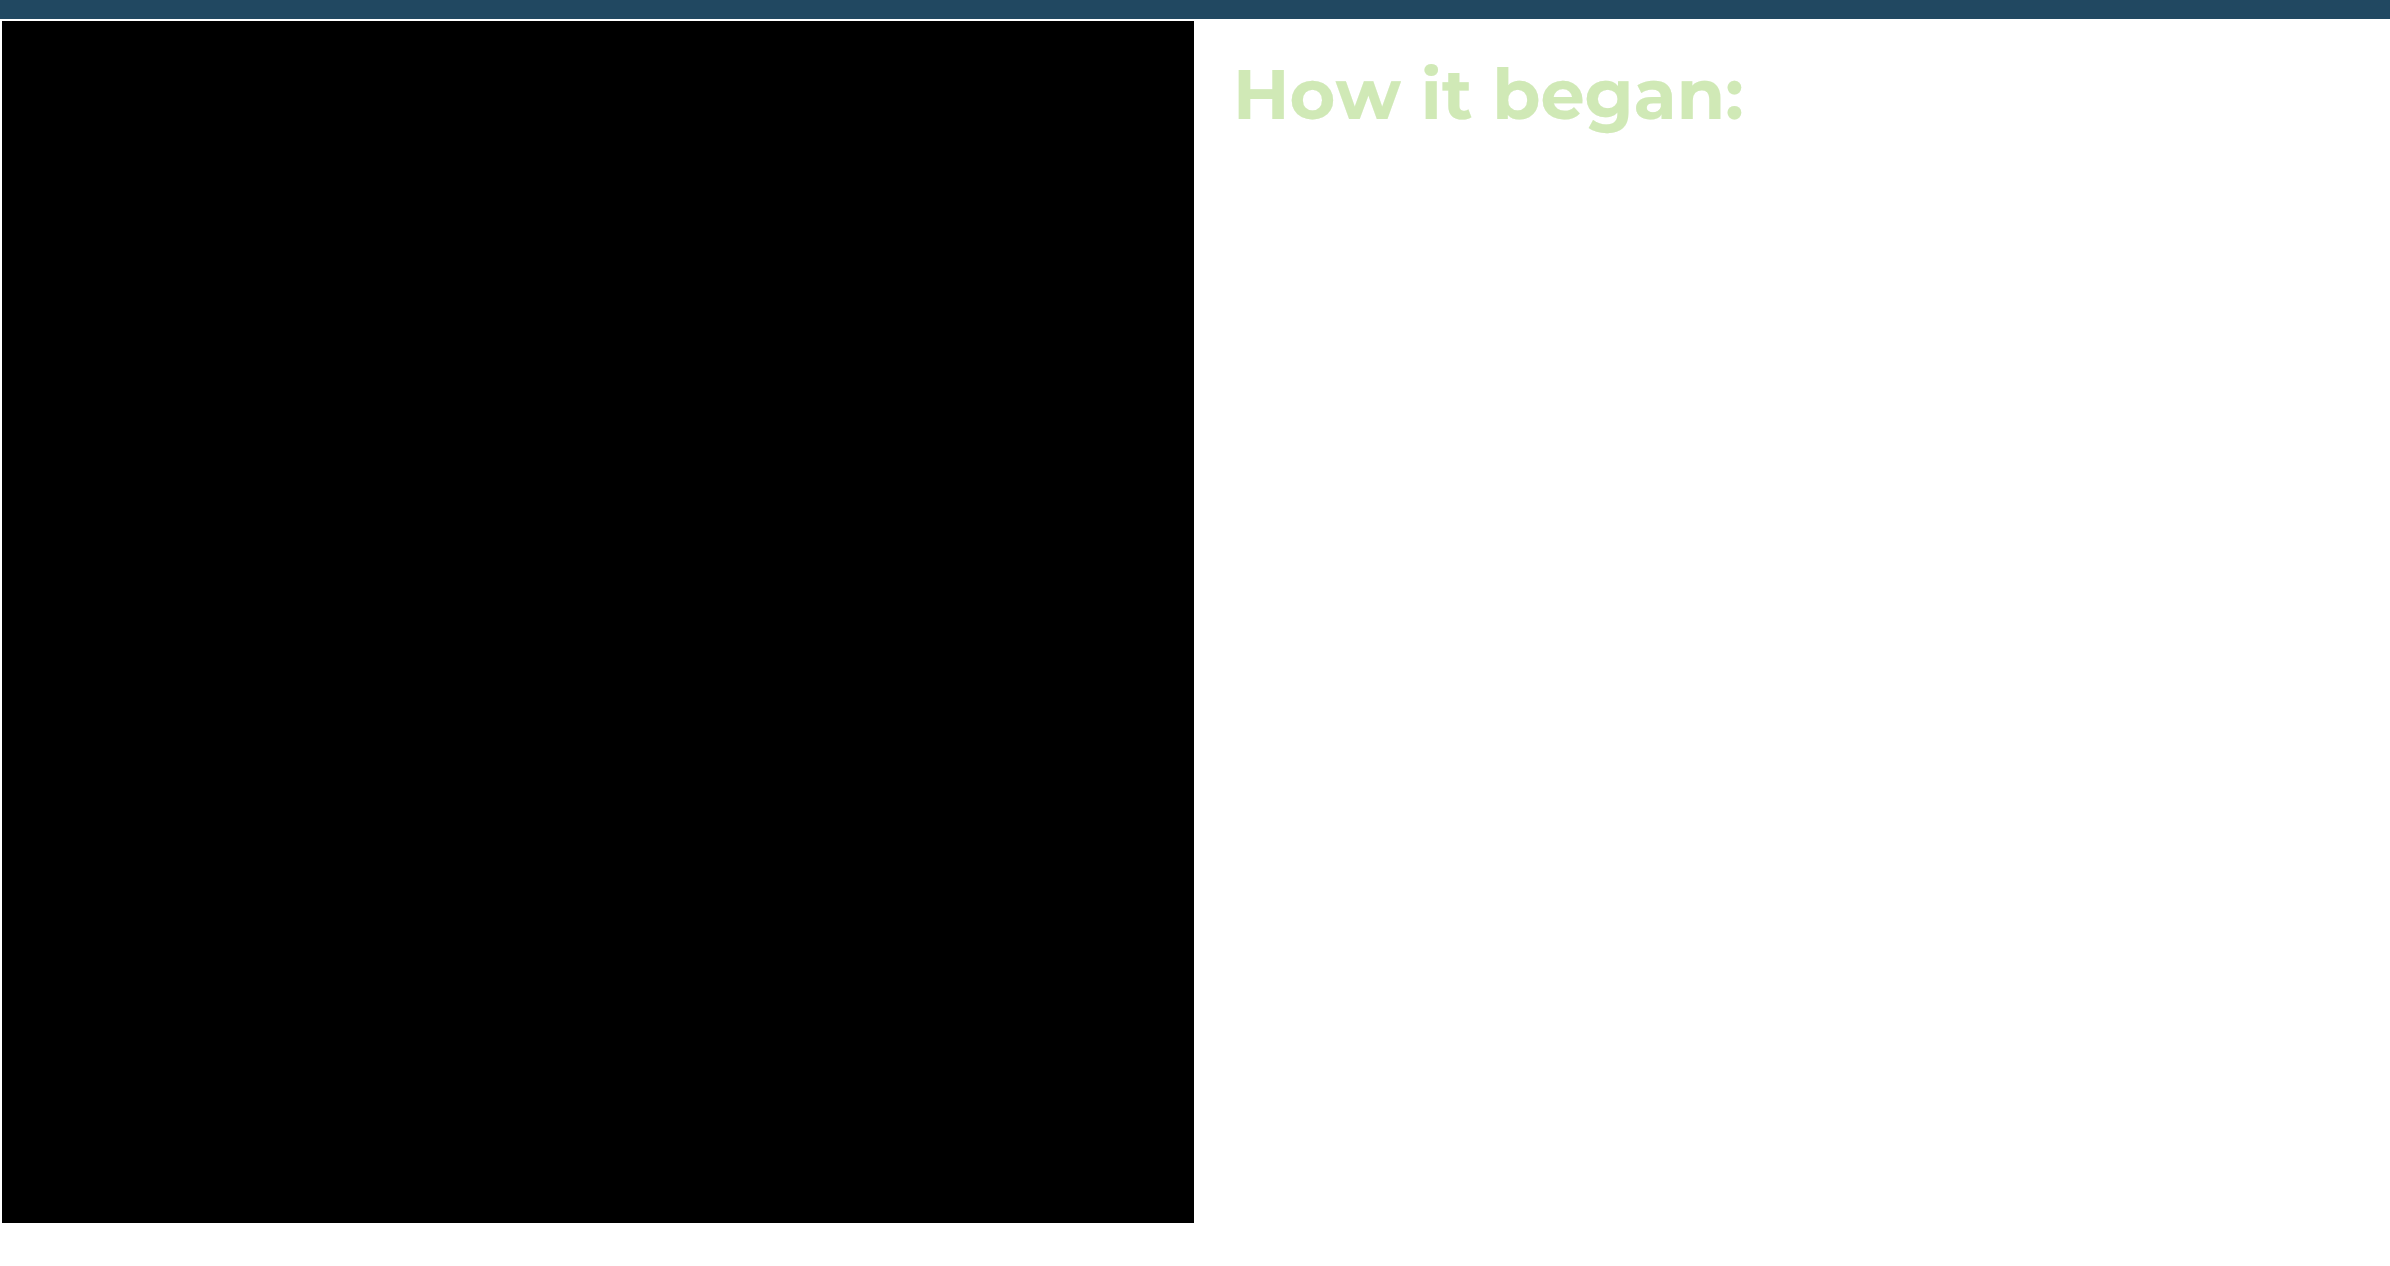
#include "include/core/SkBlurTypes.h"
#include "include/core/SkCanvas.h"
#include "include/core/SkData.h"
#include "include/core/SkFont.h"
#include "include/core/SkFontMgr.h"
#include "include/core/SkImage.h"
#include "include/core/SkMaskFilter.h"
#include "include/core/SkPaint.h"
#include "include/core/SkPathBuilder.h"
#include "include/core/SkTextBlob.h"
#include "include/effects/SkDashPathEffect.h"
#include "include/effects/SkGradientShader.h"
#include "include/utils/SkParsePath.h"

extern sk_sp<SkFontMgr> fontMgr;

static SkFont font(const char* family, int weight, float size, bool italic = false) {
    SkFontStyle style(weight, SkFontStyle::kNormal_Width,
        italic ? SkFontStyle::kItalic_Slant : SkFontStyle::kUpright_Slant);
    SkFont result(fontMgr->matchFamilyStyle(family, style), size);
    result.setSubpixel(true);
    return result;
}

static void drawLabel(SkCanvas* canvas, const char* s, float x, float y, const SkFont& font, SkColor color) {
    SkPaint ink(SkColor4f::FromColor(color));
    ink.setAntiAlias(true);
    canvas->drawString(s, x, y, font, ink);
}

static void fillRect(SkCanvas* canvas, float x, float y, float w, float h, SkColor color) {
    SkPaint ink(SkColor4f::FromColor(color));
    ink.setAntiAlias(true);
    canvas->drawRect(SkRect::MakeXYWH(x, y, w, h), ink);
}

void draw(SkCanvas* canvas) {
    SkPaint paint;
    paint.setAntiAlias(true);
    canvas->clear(0xFFFFFFFF);
    fillRect(canvas, 0, 0, 2390, 19, 0xFF214861);
    fillRect(canvas, 2, 21, 1192, 1202, 0xFF000000);
    SkFont font1 = font("Montserrat", 700, 70);
    drawLabel(canvas, "How it began:", 1233, 119, font1, 0xFFD0E9B6);
}
